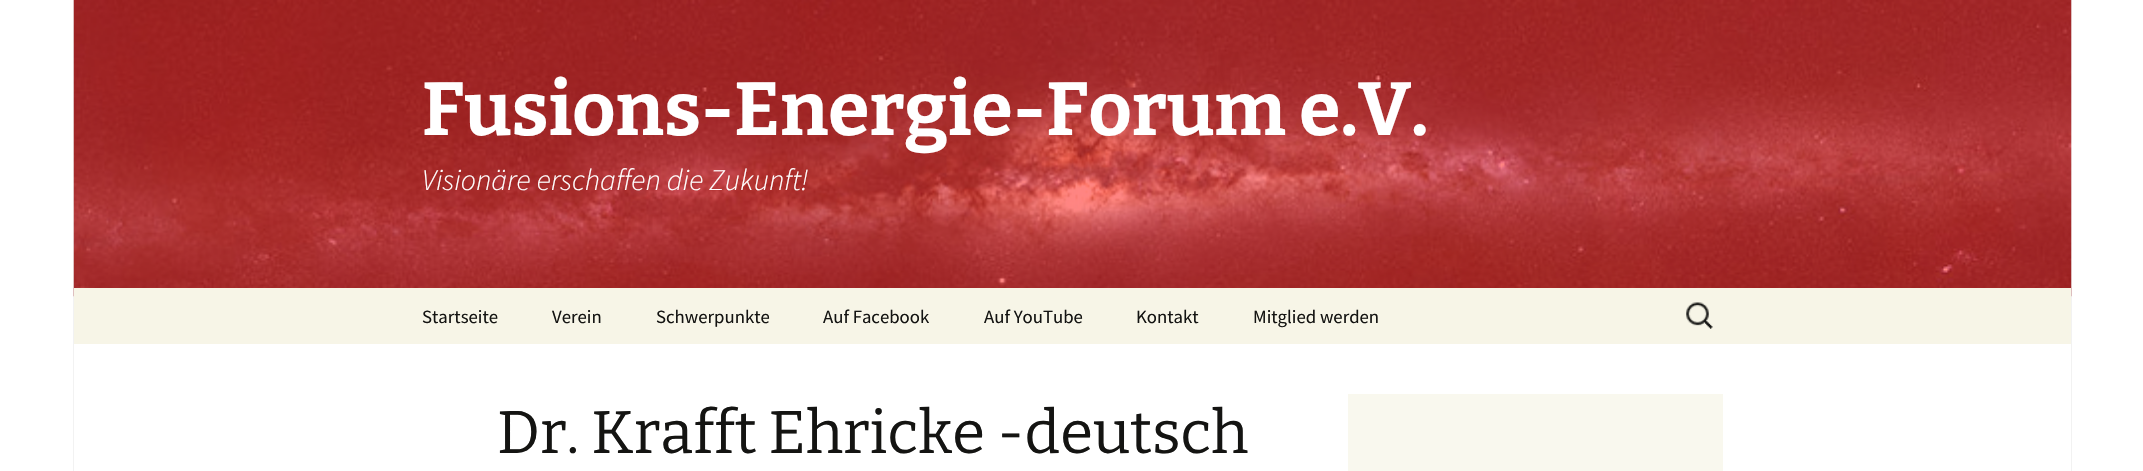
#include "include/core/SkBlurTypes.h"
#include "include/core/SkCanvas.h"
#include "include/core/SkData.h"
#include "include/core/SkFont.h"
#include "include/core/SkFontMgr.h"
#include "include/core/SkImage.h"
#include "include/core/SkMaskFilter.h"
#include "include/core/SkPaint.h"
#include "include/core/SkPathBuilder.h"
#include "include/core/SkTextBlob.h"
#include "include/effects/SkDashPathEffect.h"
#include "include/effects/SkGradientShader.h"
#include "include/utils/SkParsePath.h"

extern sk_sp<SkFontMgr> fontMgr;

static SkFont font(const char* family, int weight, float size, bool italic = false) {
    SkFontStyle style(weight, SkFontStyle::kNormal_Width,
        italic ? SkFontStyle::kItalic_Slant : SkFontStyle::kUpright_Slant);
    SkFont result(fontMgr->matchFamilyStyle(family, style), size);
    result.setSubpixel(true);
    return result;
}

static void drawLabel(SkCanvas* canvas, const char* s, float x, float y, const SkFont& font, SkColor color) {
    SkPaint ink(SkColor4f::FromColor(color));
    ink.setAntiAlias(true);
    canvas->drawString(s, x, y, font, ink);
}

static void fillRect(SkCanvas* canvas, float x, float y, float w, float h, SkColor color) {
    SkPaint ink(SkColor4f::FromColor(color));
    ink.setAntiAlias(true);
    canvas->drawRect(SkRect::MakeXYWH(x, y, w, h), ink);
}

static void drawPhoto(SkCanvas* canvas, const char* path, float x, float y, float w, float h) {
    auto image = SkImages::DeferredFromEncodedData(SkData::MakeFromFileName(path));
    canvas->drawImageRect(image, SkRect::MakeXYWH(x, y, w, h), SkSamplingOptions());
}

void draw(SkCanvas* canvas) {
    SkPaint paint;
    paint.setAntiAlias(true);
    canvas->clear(0xFFFFFFFF);
    fillRect(canvas, 2071, 0, 1, 471, 0xFFF2F2F2);
    fillRect(canvas, 73, 0, 1, 471, 0xFFF2F2F2);
    drawPhoto(canvas, "assets/img1.png", 73, 0, 1999, 297);
    SkFont font1 = font("Bitter", 100, 75);
    drawLabel(canvas, "Fusions-Energie-Forum e.V.", 422, 135, font1, 0xFFFFFFFF);
    SkFont font2 = font("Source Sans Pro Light", 300, 30, true);
    drawLabel(canvas, "Visionäre erschaffen die Zukunft!", 422, 190, font2, 0xFFFFFFFF);
    fillRect(canvas, 74, 288, 1997, 56, 0xFFF7F5E7);
    SkFont font3 = font("Source Sans Pro", 400, 18.75f);
    drawLabel(canvas, "Startseite", 422, 323, font3, 0xFF141412);
    drawLabel(canvas, "Verein", 552, 323, font3, 0xFF141412);
    drawLabel(canvas, "Schwerpunkte", 656, 323, font3, 0xFF141412);
    drawLabel(canvas, "Auf Facebook", 823, 323, font3, 0xFF141412);
    drawLabel(canvas, "Auf YouTube", 984, 323, font3, 0xFF141412);
    drawLabel(canvas, "Kontakt", 1136, 323, font3, 0xFF141412);
    drawLabel(canvas, "Mitglied werden", 1253, 323, font3, 0xFF141412);
    drawPhoto(canvas, "assets/img2.png", 1686, 302, 27, 27);
    SkFont font4 = font("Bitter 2", 100, 60);
    drawLabel(canvas, "Dr. Krafft Ehricke -deutsch", 497, 453, font4, 0xFF141412);
    fillRect(canvas, 1348, 394, 375, 77, 0xFFF9F8EE);
}
